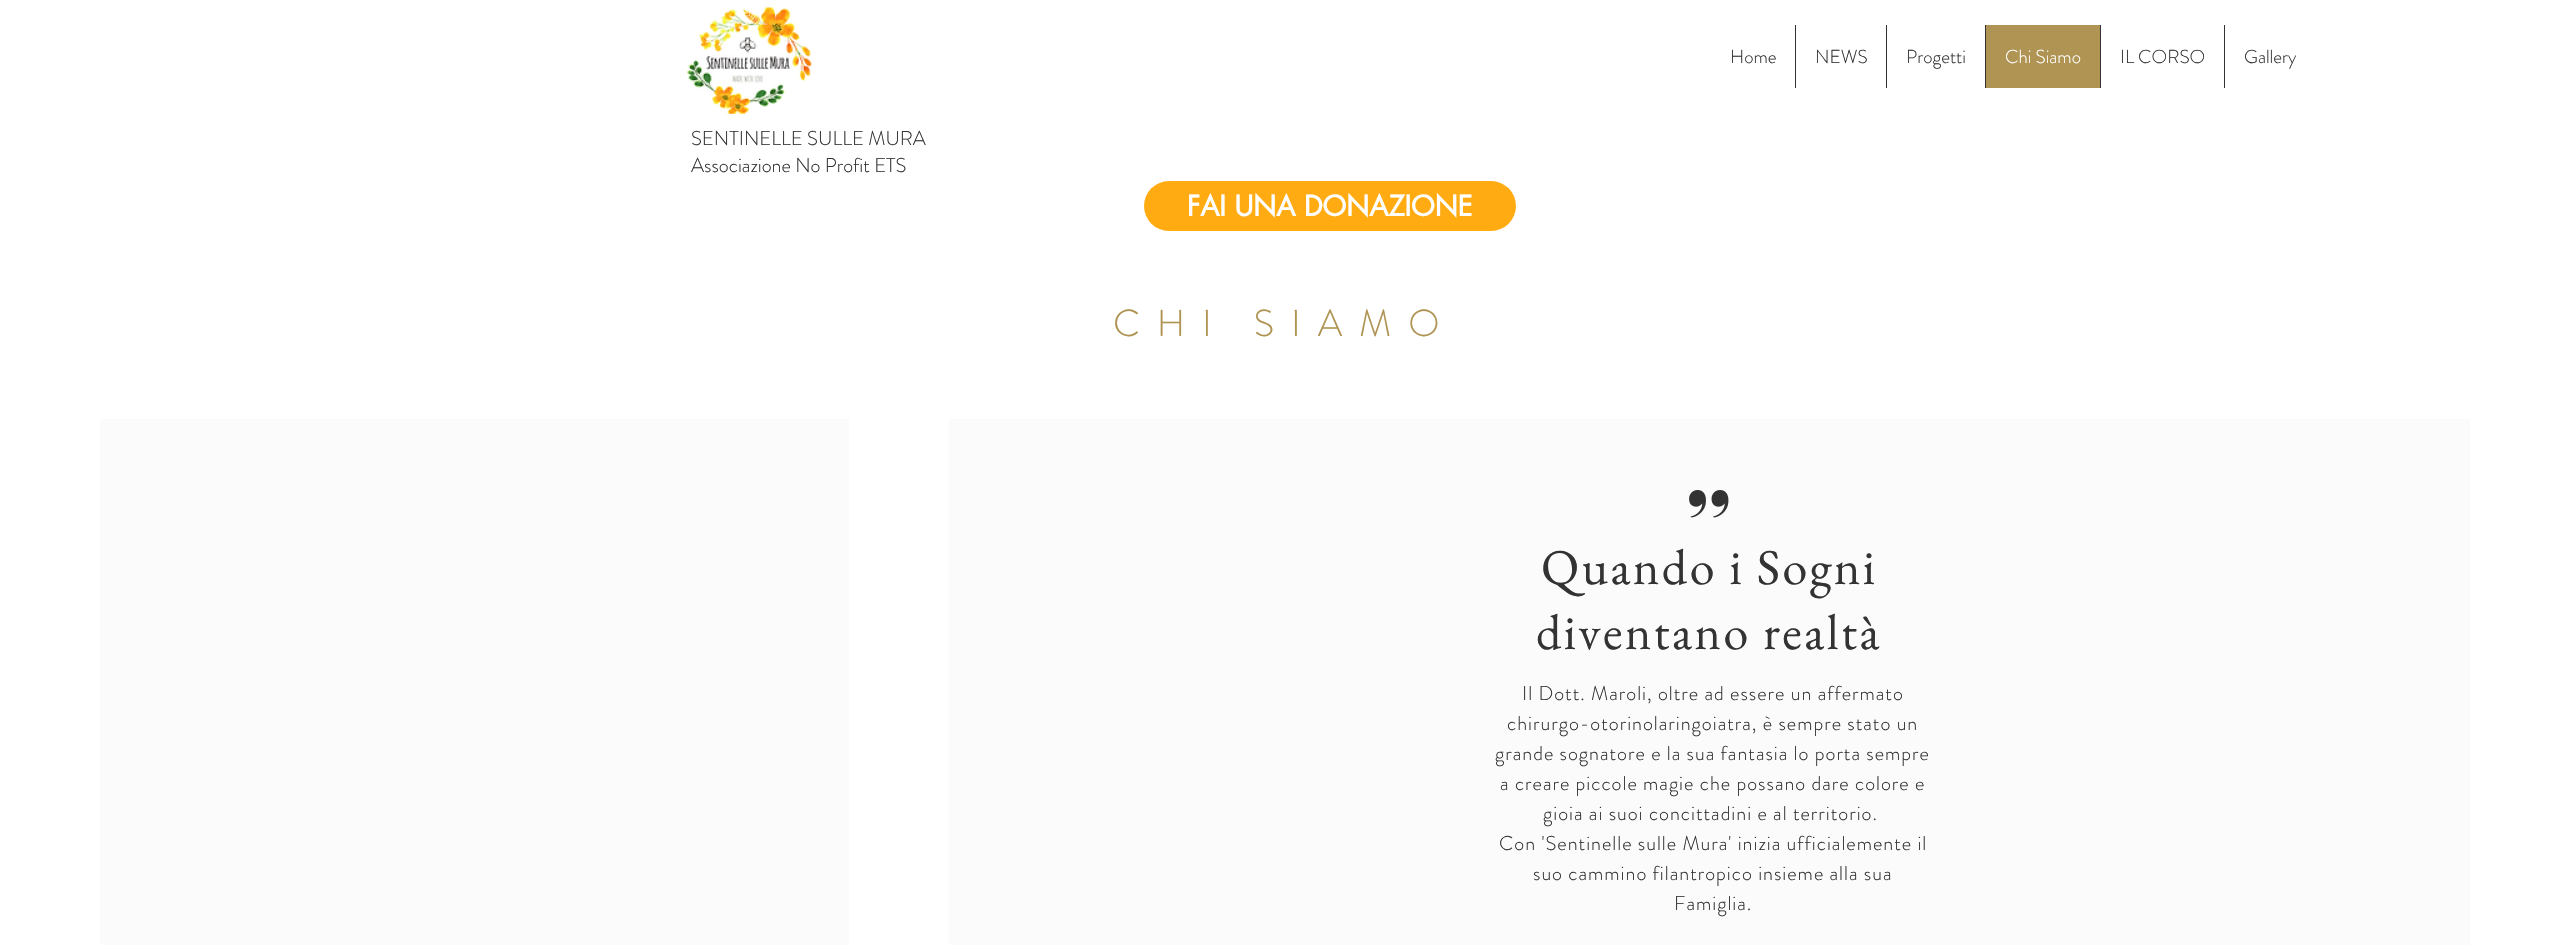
#include "include/core/SkBlurTypes.h"
#include "include/core/SkCanvas.h"
#include "include/core/SkData.h"
#include "include/core/SkFont.h"
#include "include/core/SkFontMgr.h"
#include "include/core/SkImage.h"
#include "include/core/SkMaskFilter.h"
#include "include/core/SkPaint.h"
#include "include/core/SkPathBuilder.h"
#include "include/core/SkTextBlob.h"
#include "include/effects/SkDashPathEffect.h"
#include "include/effects/SkGradientShader.h"
#include "include/utils/SkParsePath.h"

extern sk_sp<SkFontMgr> fontMgr;

static SkFont font(const char* family, int weight, float size, bool italic = false) {
    SkFontStyle style(weight, SkFontStyle::kNormal_Width,
        italic ? SkFontStyle::kItalic_Slant : SkFontStyle::kUpright_Slant);
    SkFont result(fontMgr->matchFamilyStyle(family, style), size);
    result.setSubpixel(true);
    return result;
}

static void drawLabel(SkCanvas* canvas, const char* s, float x, float y, const SkFont& font, SkColor color) {
    SkPaint ink(SkColor4f::FromColor(color));
    ink.setAntiAlias(true);
    canvas->drawString(s, x, y, font, ink);
}

static void drawTracked(SkCanvas* canvas, const char* s, float x, float y, const SkFont& font, const SkPaint& ink, float letter, float word) {
    std::vector<SkGlyphID> glyphs(font.countText(s, strlen(s), SkTextEncoding::kUTF8));
    std::vector<float> xs(glyphs.size());
    font.textToGlyphs(s, strlen(s), SkTextEncoding::kUTF8, glyphs);
    font.getXPos(glyphs, xs, x);
    float extra = 0;
    for (size_t i = 0; i < glyphs.size(); i++) {
        xs[i] += extra;
        extra += letter + word * (glyphs[i] == font.unicharToGlyph(' '));
    }
    canvas->drawTextBlob(SkTextBlob::MakeFromPosHGlyphs(glyphs, xs, y, font), 0, 0, ink);
}

static void fillRect(SkCanvas* canvas, float x, float y, float w, float h, SkColor color) {
    SkPaint ink(SkColor4f::FromColor(color));
    ink.setAntiAlias(true);
    canvas->drawRect(SkRect::MakeXYWH(x, y, w, h), ink);
}

static void fillRRect(SkCanvas* canvas, float x, float y, float w, float h, float radius, SkColor color) {
    SkPaint ink(SkColor4f::FromColor(color));
    ink.setAntiAlias(true);
    canvas->drawRoundRect(SkRect::MakeXYWH(x, y, w, h), radius, radius, ink);
}

static void drawPhoto(SkCanvas* canvas, const char* path, float x, float y, float w, float h) {
    auto image = SkImages::DeferredFromEncodedData(SkData::MakeFromFileName(path));
    canvas->drawImageRect(image, SkRect::MakeXYWH(x, y, w, h), SkSamplingOptions());
}

void draw(SkCanvas* canvas) {
    SkPaint paint;
    paint.setAntiAlias(true);
    canvas->clear(0xFFFFFFFF);
    SkFont font1 = font("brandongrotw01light", 300, 18.75f);
    drawLabel(canvas, "Home", 1730, 63, font1, 0xFF333333);
    fillRect(canvas, 1795, 25, 1, 63, 0xFF333333);
    drawLabel(canvas, "NEWS", 1815, 63, font1, 0xFF333333);
    fillRect(canvas, 1886, 25, 1, 63, 0xFF333333);
    drawLabel(canvas, "Progetti", 1906, 63, font1, 0xFF333333);
    fillRect(canvas, 1986, 25, 114, 63, 0xFFAF9453);
    fillRect(canvas, 1985, 25, 1, 63, 0xFF333333);
    drawLabel(canvas, "Chi Siamo", 2005, 63, font1, 0xFFFFFFFF);
    fillRect(canvas, 2100, 25, 1, 63, 0xFF333333);
    drawLabel(canvas, "IL CORSO", 2120, 63, font1, 0xFF333333);
    fillRect(canvas, 2224, 25, 1, 63, 0xFF333333);
    drawLabel(canvas, "Gallery", 2244, 63, font1, 0xFF333333);
    drawPhoto(canvas, "assets/img1.png", 687, 7, 125, 107);
    SkFont font2 = font("brandongrotw01light", 300, 20);
    drawLabel(canvas, "SENTINELLE SULLE MURA", 691, 145, font2, 0xFF333333);
    drawLabel(canvas, "Associazione No Profit ETS", 691, 172, font2, 0xFF333333);
    fillRRect(canvas, 1144, 181, 372, 50, 25, 0xFFFFAB11);
    SkFont font3 = font("futura", 700, 27.5f);
    drawLabel(canvas, "FAI UNA DONAZIONE", 1187, 216, font3, 0xFFFFFFFF);
    SkFont font4 = font("brandongrotw01light", 300, 37.5f);
    paint.setColor(0xFFAF9453);
    drawTracked(canvas, "CHI SIAMO", 1113, 336, font4, paint, 16.9f, 0);
    fillRect(canvas, 100, 419, 749, 526, 0xFFFBFBFB);
    fillRect(canvas, 949, 419, 1521, 526, 0xFFFBFBFB);
    drawPhoto(canvas, "assets/img2.png", 1689, 490, 40, 28);
    SkFont font5 = font("EB Garamond", 400, 50);
    paint.setColor(0xFF333333);
    drawTracked(canvas, "Quando i Sogni", 1541, 584, font5, paint, 2.5f, 0);
    drawTracked(canvas, "diventano realtà", 1536, 649, font5, paint, 2.5f, 0);
    drawTracked(canvas, "Il Dott. Maroli, oltre ad essere un affermato", 1522, 700, font2, paint, 1, 0);
    drawTracked(canvas, "chirurgo-otorinolaringoiatra, è sempre stato un", 1507, 730, font2, paint, 1, 0);
    drawTracked(canvas, "grande sognatore e la sua fantasia lo porta sempre", 1495, 760, font2, paint, 1, 0);
    drawTracked(canvas, "a creare piccole magie che possano dare colore e", 1500, 790, font2, paint, 1, 0);
    drawTracked(canvas, "gioia ai suoi concittadini e al territorio.", 1543, 820, font2, paint, 1, 0);
    drawTracked(canvas, "Con 'Sentinelle sulle Mura' inizia ufficialemente il", 1499, 850, font2, paint, 1, 0);
    drawTracked(canvas, "suo cammino filantropico insieme alla sua", 1533, 880, font2, paint, 1, 0);
    drawTracked(canvas, "Famiglia.", 1674, 910, font2, paint, 1, 0);
}
